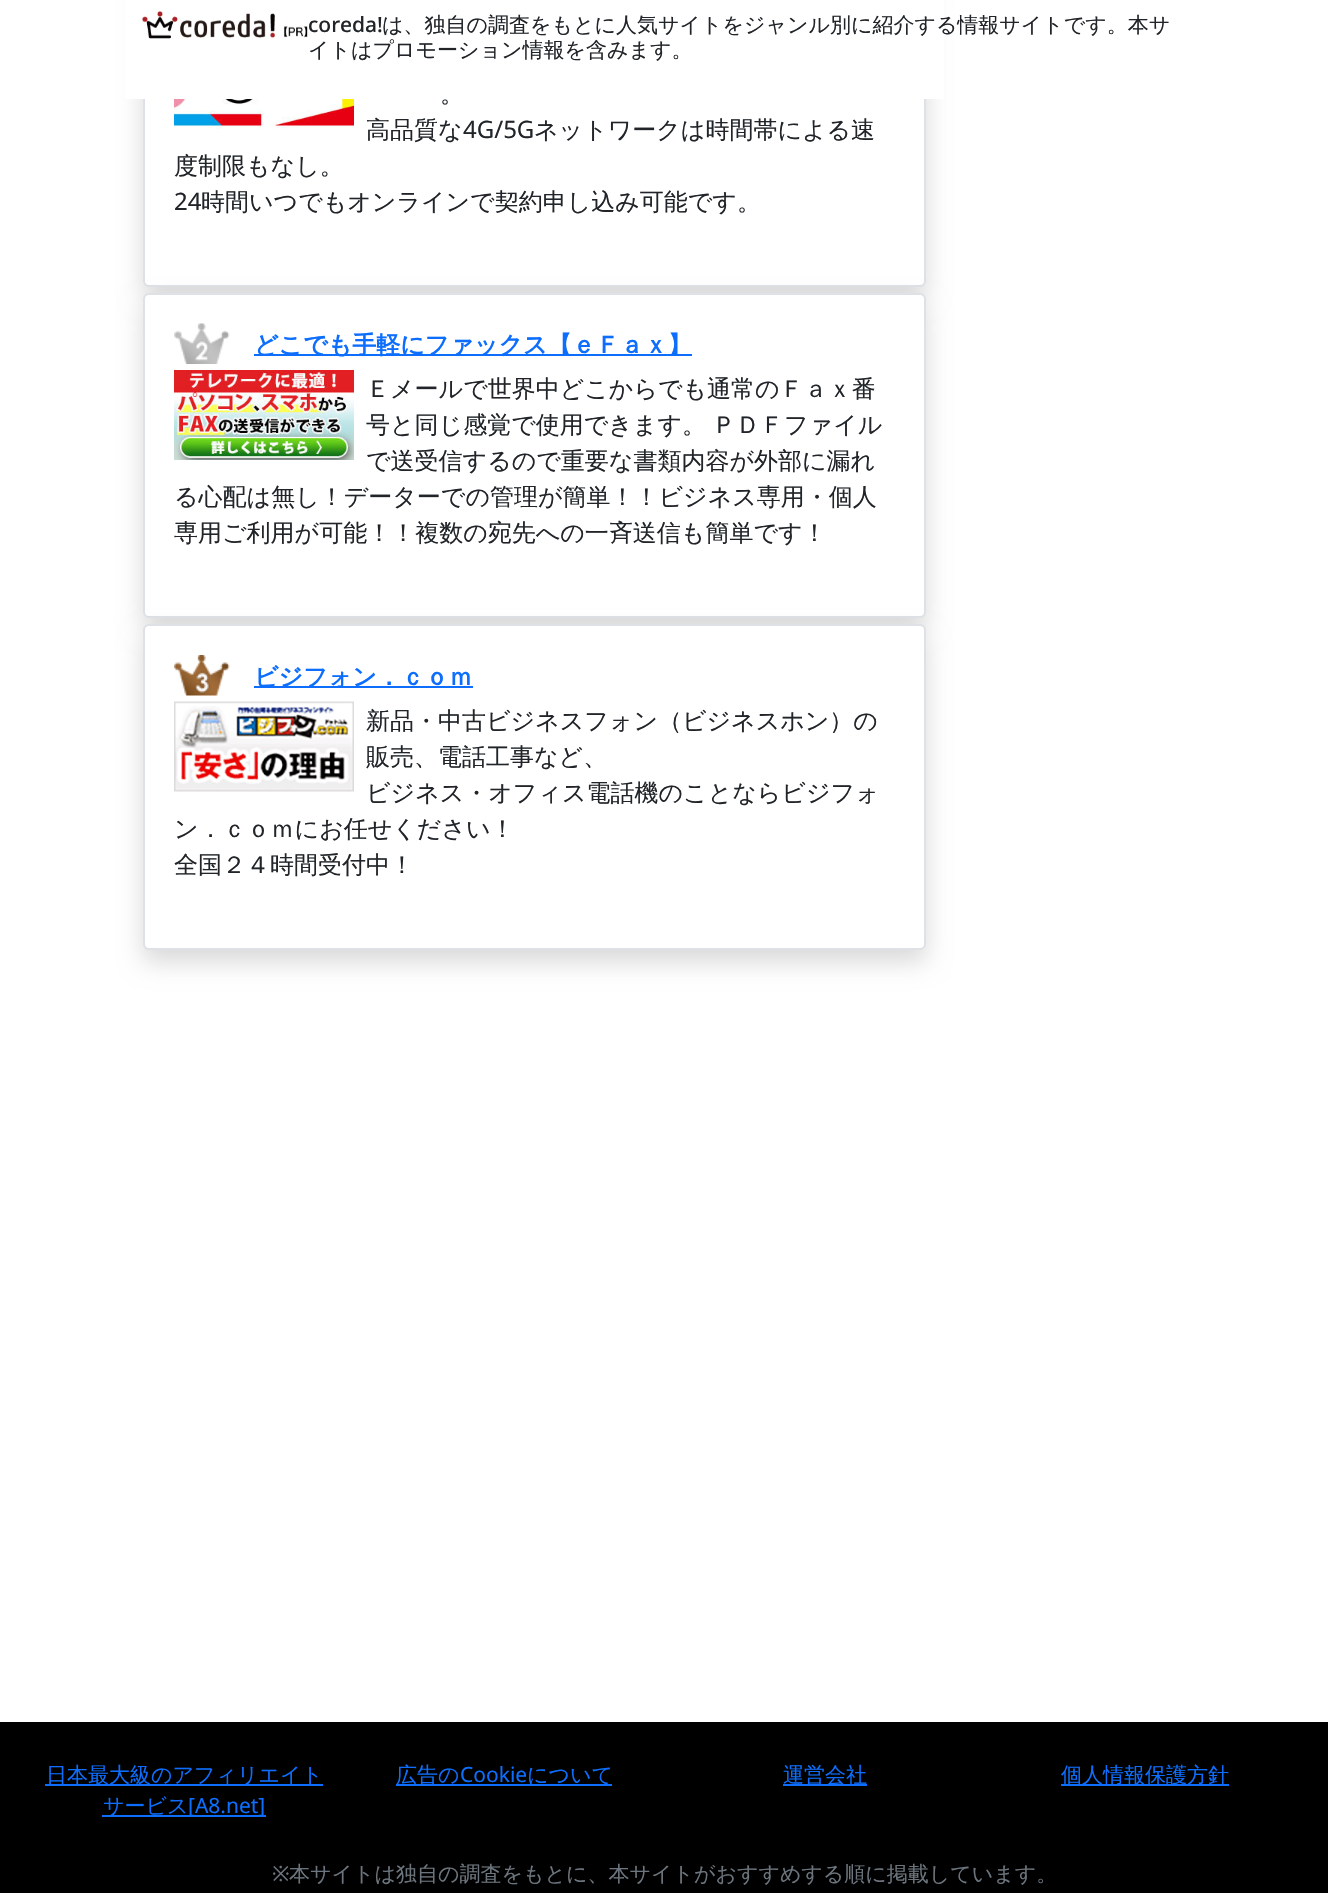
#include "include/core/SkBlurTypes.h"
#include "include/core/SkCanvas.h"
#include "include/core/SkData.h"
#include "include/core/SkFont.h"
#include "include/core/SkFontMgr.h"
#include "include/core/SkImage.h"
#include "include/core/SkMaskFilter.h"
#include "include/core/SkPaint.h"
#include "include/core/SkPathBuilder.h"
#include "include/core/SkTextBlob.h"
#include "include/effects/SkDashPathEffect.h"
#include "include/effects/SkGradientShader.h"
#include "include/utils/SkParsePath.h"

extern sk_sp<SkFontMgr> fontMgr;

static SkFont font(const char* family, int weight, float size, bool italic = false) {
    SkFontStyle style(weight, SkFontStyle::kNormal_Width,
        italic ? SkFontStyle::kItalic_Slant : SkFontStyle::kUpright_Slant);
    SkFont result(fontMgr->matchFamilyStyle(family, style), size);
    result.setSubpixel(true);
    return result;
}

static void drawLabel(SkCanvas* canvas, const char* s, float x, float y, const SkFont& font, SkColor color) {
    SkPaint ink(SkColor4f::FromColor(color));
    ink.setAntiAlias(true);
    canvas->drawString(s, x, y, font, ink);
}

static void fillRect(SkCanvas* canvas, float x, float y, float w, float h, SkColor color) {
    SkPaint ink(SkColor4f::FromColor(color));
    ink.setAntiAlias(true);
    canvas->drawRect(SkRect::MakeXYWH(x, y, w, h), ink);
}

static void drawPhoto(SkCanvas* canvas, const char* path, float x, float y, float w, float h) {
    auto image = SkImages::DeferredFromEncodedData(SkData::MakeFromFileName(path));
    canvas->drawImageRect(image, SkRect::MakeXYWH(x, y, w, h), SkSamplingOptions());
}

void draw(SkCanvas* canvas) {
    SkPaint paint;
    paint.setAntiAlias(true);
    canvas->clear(0xFFFFFFFF);
    paint.setColor(0x26000000);
    paint.setMaskFilter(SkMaskFilter::MakeBlur(kNormal_SkBlurStyle, 12));
    canvas->drawRoundRect(SkRect::MakeXYWH(143, -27, 783, 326), 6, 6, paint);
    paint.setMaskFilter(nullptr);
    paint.setColor(0xFFFFFFFF);
    canvas->drawRoundRect(SkRect::MakeXYWH(144, -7, 781, 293), 5, 5, paint);
    paint.setStroke(true);
    paint.setStrokeWidth(2);
    paint.setColor(0xFFDEE2E6);
    canvas->drawRoundRect(SkRect::MakeXYWH(144, -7, 781, 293), 5, 5, paint);
    fillRect(canvas, 125, 0, 819, 99, 0xFFFFFFFF);
    drawPhoto(canvas, "assets/img1.png", 142, 11, 166, 28);
    SkFont font1 = font("Noto Sans", 500, 21);
    drawLabel(canvas, "coreda!", 308, 32, font1, 0xFF212529);
    SkFont font2 = font("WenQuanYi Zen Hei", 500, 21);
    drawLabel(canvas, "は、独自の調査をもとに人気サイトをジャンル別に紹介する情報サイトです。本サ", 382, 32, font2, 0xFF212529);
    drawLabel(canvas, "イトはプロモーション情報を含みます。", 308, 57, font2, 0xFF212529);
    drawPhoto(canvas, "assets/img2.png", 174, 99, 180, 30);
    SkFont font3 = font("WenQuanYi Zen Hei", 500, 24);
    drawLabel(canvas, "。", 440, 102, font3, 0xFF212529);
    drawLabel(canvas, "高品質な", 366, 138, font3, 0xFF212529);
    SkFont font4 = font("Noto Sans", 400, 24);
    drawLabel(canvas, "4G/5G", 463, 138, font4, 0xFF212529);
    drawLabel(canvas, "ネットワークは時間帯による速", 534, 138, font3, 0xFF212529);
    drawLabel(canvas, "度制限もなし。", 174, 174, font3, 0xFF212529);
    drawLabel(canvas, "24", 174, 210, font4, 0xFF212529);
    drawLabel(canvas, "時間いつでもオンラインで契約申し込み可能です。", 201, 210, font3, 0xFF212529);
    paint.setStroke(false);
    paint.setColor(0x26000000);
    paint.setMaskFilter(SkMaskFilter::MakeBlur(kNormal_SkBlurStyle, 12));
    canvas->drawRoundRect(SkRect::MakeXYWH(143, 305, 783, 325), 6, 6, paint);
    paint.setMaskFilter(nullptr);
    paint.setColor(0xFFFFFFFF);
    canvas->drawRoundRect(SkRect::MakeXYWH(144, 294, 781, 323), 5, 5, paint);
    paint.setStroke(true);
    paint.setColor(0xFFDEE2E6);
    canvas->drawRoundRect(SkRect::MakeXYWH(144, 294, 781, 323), 5, 5, paint);
    drawPhoto(canvas, "assets/img3.png", 174, 323, 56, 41);
    fillRect(canvas, 254, 354, 438, 2, 0xFF0D6EFD);
    SkFont font5 = font("WenQuanYi Zen Hei", 700, 24);
    drawLabel(canvas, "どこでも手軽にファックス【ｅＦａｘ】", 254, 353, font5, 0xFF0D6EFD);
    drawPhoto(canvas, "assets/img4.png", 174, 370, 180, 90);
    drawLabel(canvas, "Ｅメールで世界中どこからでも通常のＦａｘ番", 366, 397, font3, 0xFF212529);
    drawLabel(canvas, "号と同じ感覚で使用できます。", 366, 433, font3, 0xFF212529);
    drawLabel(canvas, "ＰＤＦファイル", 712, 433, font3, 0xFF212529);
    drawLabel(canvas, "で送受信するので重要な書類内容が外部に漏れ", 366, 469, font3, 0xFF212529);
    drawLabel(canvas, "る心配は無し！データーでの管理が簡単！！ビジネス専用・個人", 174, 505, font3, 0xFF212529);
    drawLabel(canvas, "専用ご利用が可能！！複数の宛先への一斉送信も簡単です！", 174, 541, font3, 0xFF212529);
    paint.setStroke(false);
    paint.setColor(0x26000000);
    paint.setMaskFilter(SkMaskFilter::MakeBlur(kNormal_SkBlurStyle, 12));
    canvas->drawRoundRect(SkRect::MakeXYWH(143, 636, 783, 326), 6, 6, paint);
    paint.setMaskFilter(nullptr);
    paint.setColor(0xFFFFFFFF);
    canvas->drawRoundRect(SkRect::MakeXYWH(144, 625, 781, 324), 5, 5, paint);
    paint.setStroke(true);
    paint.setColor(0xFFDEE2E6);
    canvas->drawRoundRect(SkRect::MakeXYWH(144, 625, 781, 324), 5, 5, paint);
    drawPhoto(canvas, "assets/img5.png", 174, 655, 56, 41);
    fillRect(canvas, 254, 686, 219, 2, 0xFF0D6EFD);
    drawLabel(canvas, "ビジフォン．ｃｏｍ", 254, 685, font5, 0xFF0D6EFD);
    drawPhoto(canvas, "assets/img6.png", 174, 701, 180, 91);
    drawLabel(canvas, "新品・中古ビジネスフォン（ビジネスホン）の", 366, 729, font3, 0xFF212529);
    drawLabel(canvas, "販売、電話工事など、", 366, 765, font3, 0xFF212529);
    drawLabel(canvas, "ビジネス・オフィス電話機のことならビジフォ", 366, 801, font3, 0xFF212529);
    drawLabel(canvas, "ン．ｃｏｍにお任せください！", 174, 837, font3, 0xFF212529);
    drawLabel(canvas, "全国２４時間受付中！", 174, 873, font3, 0xFF212529);
    fillRect(canvas, 0, 1722, 1328, 171, 0xFF000000);
    fillRect(canvas, 45, 1784, 278, 2, 0xFF0D6EFD);
    drawLabel(canvas, "日本最大級のアフィリエイト", 46, 1782, font2, 0xFF0D6EFD);
    fillRect(canvas, 102, 1815, 164, 2, 0xFF0D6EFD);
    drawLabel(canvas, "サービス", 103, 1813, font2, 0xFF0D6EFD);
    SkFont font6 = font("Noto Sans", 400, 21);
    drawLabel(canvas, "[A8.net]", 188, 1813, font6, 0xFF0D6EFD);
    fillRect(canvas, 396, 1784, 216, 2, 0xFF0D6EFD);
    drawLabel(canvas, "広告の", 396, 1782, font2, 0xFF0D6EFD);
    drawLabel(canvas, "Cookie", 460, 1782, font6, 0xFF0D6EFD);
    drawLabel(canvas, "について", 527, 1782, font2, 0xFF0D6EFD);
    fillRect(canvas, 783, 1784, 84, 2, 0xFF0D6EFD);
    drawLabel(canvas, "運営会社", 783, 1782, font2, 0xFF0D6EFD);
    fillRect(canvas, 1061, 1784, 168, 2, 0xFF0D6EFD);
    drawLabel(canvas, "個人情報保護方針", 1061, 1782, font2, 0xFF0D6EFD);
    drawLabel(canvas, "※", 272, 1881, font6, 0xFF6C757D);
    drawLabel(canvas, "本サイトは独自の調査をもとに、本サイトがおすすめする順に掲載しています。", 289, 1881, font2, 0xFF6C757D);
}
